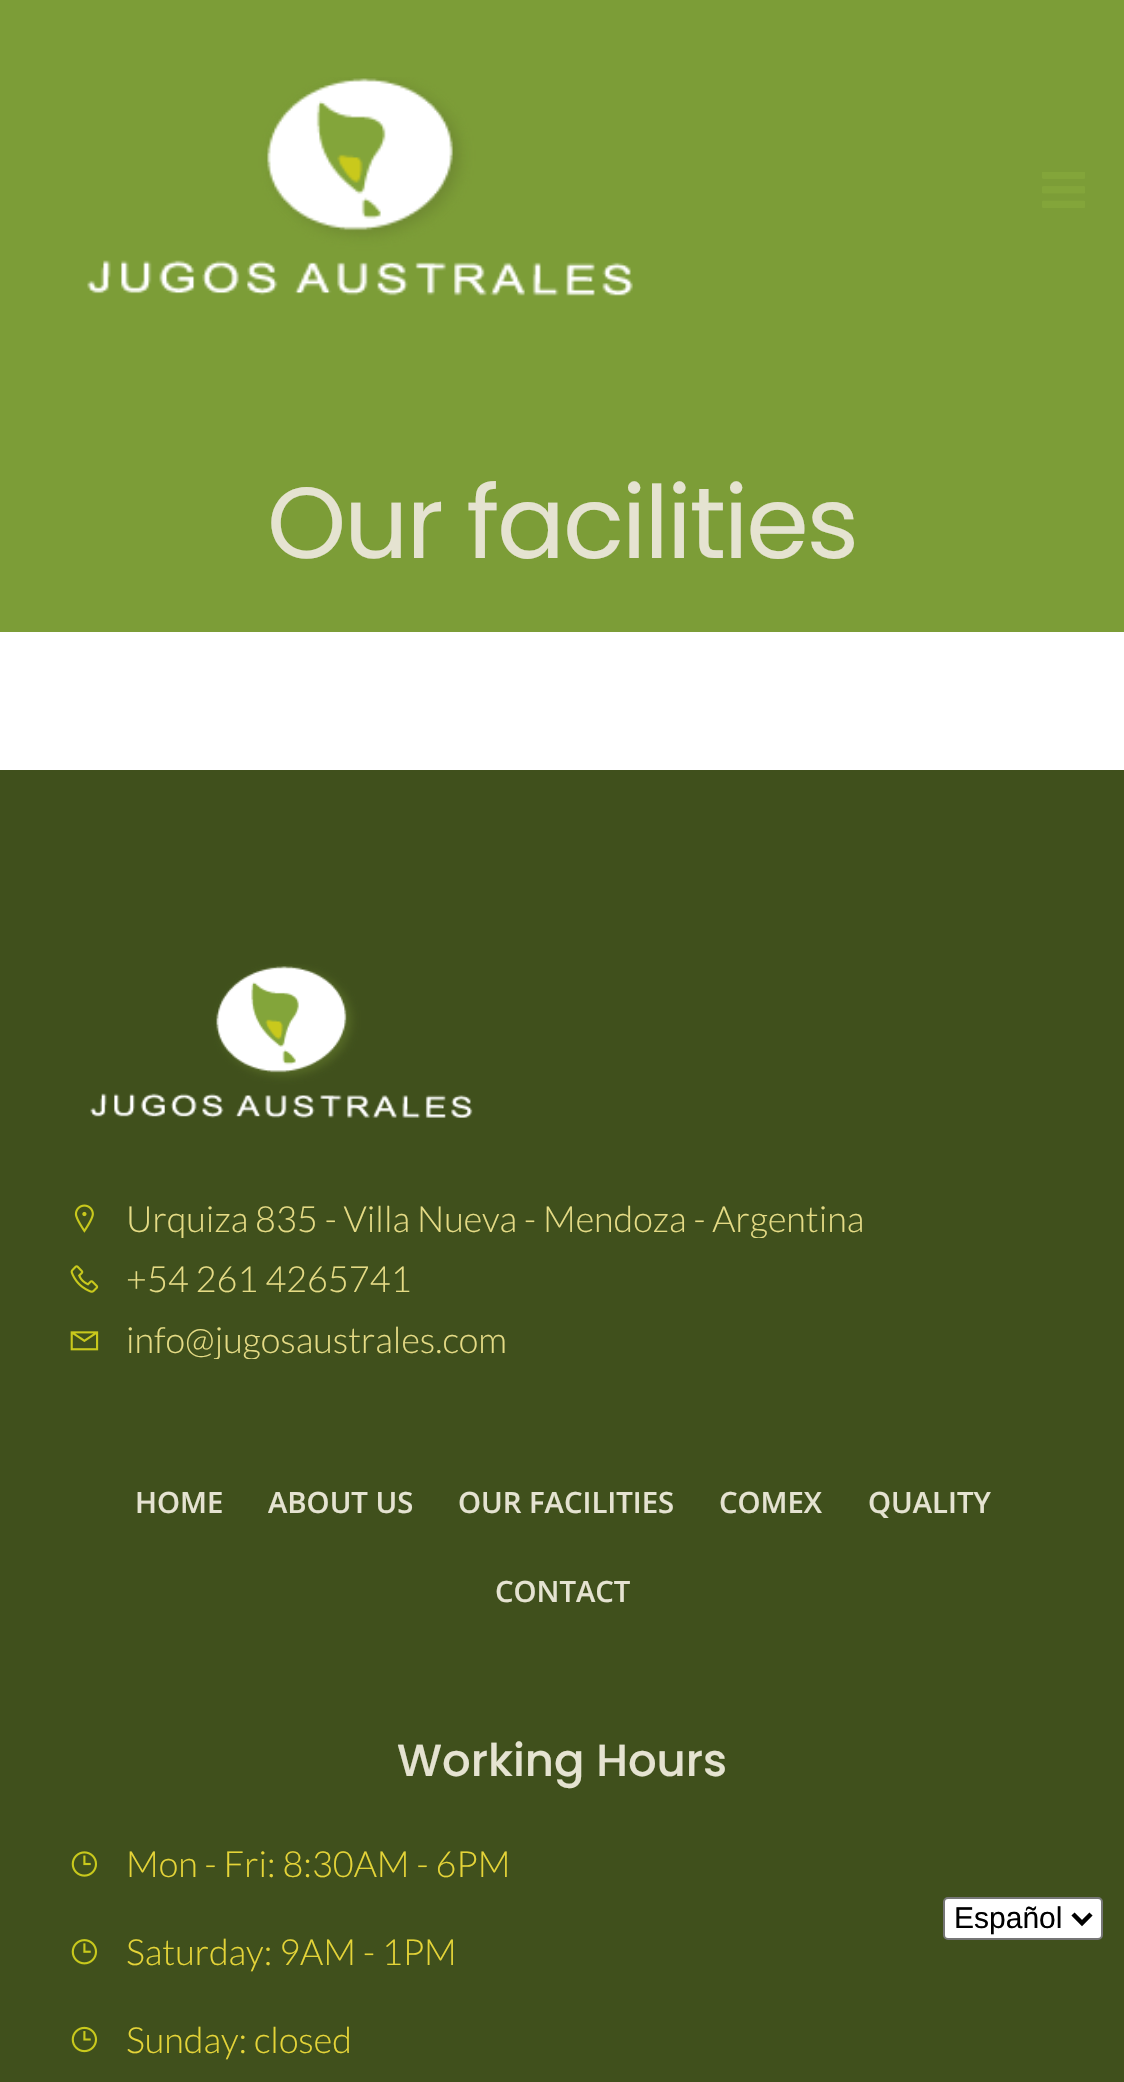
#include "include/core/SkBlurTypes.h"
#include "include/core/SkCanvas.h"
#include "include/core/SkData.h"
#include "include/core/SkFont.h"
#include "include/core/SkFontMgr.h"
#include "include/core/SkImage.h"
#include "include/core/SkMaskFilter.h"
#include "include/core/SkPaint.h"
#include "include/core/SkPathBuilder.h"
#include "include/core/SkTextBlob.h"
#include "include/effects/SkDashPathEffect.h"
#include "include/effects/SkGradientShader.h"
#include "include/utils/SkParsePath.h"

extern sk_sp<SkFontMgr> fontMgr;

static SkFont font(const char* family, int weight, float size, bool italic = false) {
    SkFontStyle style(weight, SkFontStyle::kNormal_Width,
        italic ? SkFontStyle::kItalic_Slant : SkFontStyle::kUpright_Slant);
    SkFont result(fontMgr->matchFamilyStyle(family, style), size);
    result.setSubpixel(true);
    return result;
}

static void drawLabel(SkCanvas* canvas, const char* s, float x, float y, const SkFont& font, SkColor color) {
    SkPaint ink(SkColor4f::FromColor(color));
    ink.setAntiAlias(true);
    canvas->drawString(s, x, y, font, ink);
}

static void drawTracked(SkCanvas* canvas, const char* s, float x, float y, const SkFont& font, const SkPaint& ink, float letter, float word) {
    std::vector<SkGlyphID> glyphs(font.countText(s, strlen(s), SkTextEncoding::kUTF8));
    std::vector<float> xs(glyphs.size());
    font.textToGlyphs(s, strlen(s), SkTextEncoding::kUTF8, glyphs);
    font.getXPos(glyphs, xs, x);
    float extra = 0;
    for (size_t i = 0; i < glyphs.size(); i++) {
        xs[i] += extra;
        extra += letter + word * (glyphs[i] == font.unicharToGlyph(' '));
    }
    canvas->drawTextBlob(SkTextBlob::MakeFromPosHGlyphs(glyphs, xs, y, font), 0, 0, ink);
}

static void fillRect(SkCanvas* canvas, float x, float y, float w, float h, SkColor color) {
    SkPaint ink(SkColor4f::FromColor(color));
    ink.setAntiAlias(true);
    canvas->drawRect(SkRect::MakeXYWH(x, y, w, h), ink);
}

static void drawPhoto(SkCanvas* canvas, const char* path, float x, float y, float w, float h) {
    auto image = SkImages::DeferredFromEncodedData(SkData::MakeFromFileName(path));
    canvas->drawImageRect(image, SkRect::MakeXYWH(x, y, w, h), SkSamplingOptions());
}

static SkPath parsePath(const char* data, bool evenOdd = false) {
    SkPath result = *SkParsePath::FromSVGString(data);
    if (evenOdd) result.setFillType(SkPathFillType::kEvenOdd);
    return result;
}

void draw(SkCanvas* canvas) {
    SkPaint paint;
    paint.setAntiAlias(true);
    canvas->clear(0xFFFFFFFF);
    fillRect(canvas, 0, 0, 1124, 632, 0xFF7C9D37);
    drawPhoto(canvas, "assets/img1.png", 87, 77, 546, 219);
    drawPhoto(canvas, "assets/img2.png", 1042, 172, 43, 36);
    SkFont font1 = font("Poppins", 400, 100.75f);
    paint.setColor(0xFFE5E3D1);
    drawTracked(canvas, "Our facilities", 267, 558, font1, paint, -2.25f, 0);
    fillRect(canvas, 0, 770, 1124, 1312, 0xFF40501C);
    drawPhoto(canvas, "assets/img3.png", 90, 964, 383, 154);
    drawPhoto(canvas, "assets/img4.png", 74, 1204, 20, 29);
    canvas->save();
    canvas->clipRect(SkRect::MakeXYWH(126, 1195, 738, 43));
    SkFont font2 = font("Lato", 300, 36);
    drawLabel(canvas, "Urquiza 835 - Villa Nueva - Mendoza - Argentina", 126, 1232, font2, 0xFFE5DB85);
    canvas->restore();
    drawPhoto(canvas, "assets/img5.png", 70, 1265, 29, 28);
    drawLabel(canvas, "+54 261 4265741", 126, 1292, font2, 0xFFE5DB85);
    drawPhoto(canvas, "assets/img6.png", 70, 1331, 29, 20);
    canvas->save();
    canvas->clipRect(SkRect::MakeXYWH(126, 1316, 380, 43));
    drawLabel(canvas, "info@jugosaustrales.com", 126, 1353, font2, 0xFFE5DB85);
    canvas->restore();
    SkFont font3 = font("Open Sans", 600, 29.25f);
    drawLabel(canvas, "HOME", 135, 1513, font3, 0xFFE5E3D1);
    drawLabel(canvas, "ABOUT US", 268, 1513, font3, 0xFFE5E3D1);
    drawLabel(canvas, "OUR FACILITIES", 458, 1513, font3, 0xFFE5E3D1);
    drawLabel(canvas, "COMEX", 719, 1513, font3, 0xFFE5E3D1);
    drawLabel(canvas, "QUALITY", 868, 1513, font3, 0xFFE5E3D1);
    drawLabel(canvas, "CONTACT", 495, 1602, font3, 0xFFE5E3D1);
    SkFont font4 = font("Poppins", 500, 45);
    drawLabel(canvas, "Working Hours", 397, 1776, font4, 0xFFE5E3D1);
    drawPhoto(canvas, "assets/img7.png", 71, 1851, 26, 26);
    drawLabel(canvas, "Mon - Fri: 8:30AM - 6PM", 126, 1877, font2, 0xFFE5D438);
    drawPhoto(canvas, "assets/img8.png", 71, 1939, 27, 26);
    drawLabel(canvas, "Saturday: 9AM - 1PM", 126, 1965, font2, 0xFFE5D438);
    drawPhoto(canvas, "assets/img9.png", 71, 2026, 27, 27);
    drawLabel(canvas, "Sunday: closed", 126, 2053, font2, 0xFFE5D438);
    paint.setColor(0xFFFFFFFF);
    canvas->drawRoundRect(SkRect::MakeXYWH(944, 1898, 158, 41), 4, 4, paint);
    paint.setStroke(true);
    paint.setStrokeWidth(2);
    paint.setColor(0xFF767676);
    canvas->drawRoundRect(SkRect::MakeXYWH(944, 1898, 158, 41), 4, 4, paint);
    paint.setStrokeWidth(4.5f);
    paint.setColor(0xFF000000);
    canvas->drawPath(parsePath("M1073 1914L1082 1923L1091 1914"), paint);
    SkFont font5 = font("Liberation Sans", 400, 30);
    drawLabel(canvas, "Español", 954, 1928, font5, 0xFF000000);
}
